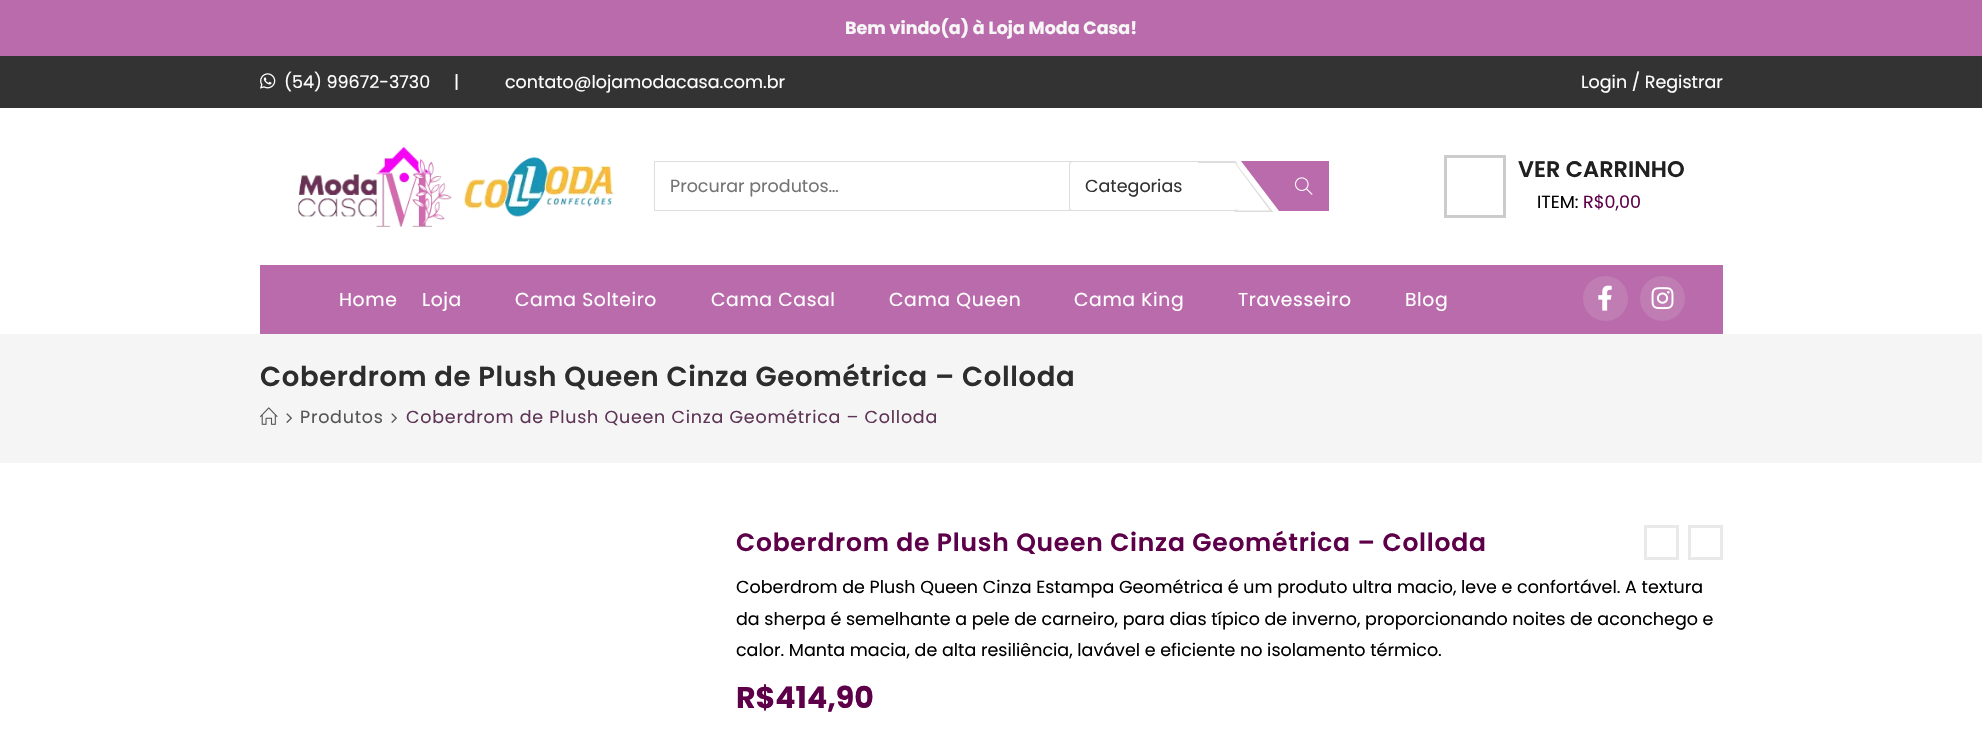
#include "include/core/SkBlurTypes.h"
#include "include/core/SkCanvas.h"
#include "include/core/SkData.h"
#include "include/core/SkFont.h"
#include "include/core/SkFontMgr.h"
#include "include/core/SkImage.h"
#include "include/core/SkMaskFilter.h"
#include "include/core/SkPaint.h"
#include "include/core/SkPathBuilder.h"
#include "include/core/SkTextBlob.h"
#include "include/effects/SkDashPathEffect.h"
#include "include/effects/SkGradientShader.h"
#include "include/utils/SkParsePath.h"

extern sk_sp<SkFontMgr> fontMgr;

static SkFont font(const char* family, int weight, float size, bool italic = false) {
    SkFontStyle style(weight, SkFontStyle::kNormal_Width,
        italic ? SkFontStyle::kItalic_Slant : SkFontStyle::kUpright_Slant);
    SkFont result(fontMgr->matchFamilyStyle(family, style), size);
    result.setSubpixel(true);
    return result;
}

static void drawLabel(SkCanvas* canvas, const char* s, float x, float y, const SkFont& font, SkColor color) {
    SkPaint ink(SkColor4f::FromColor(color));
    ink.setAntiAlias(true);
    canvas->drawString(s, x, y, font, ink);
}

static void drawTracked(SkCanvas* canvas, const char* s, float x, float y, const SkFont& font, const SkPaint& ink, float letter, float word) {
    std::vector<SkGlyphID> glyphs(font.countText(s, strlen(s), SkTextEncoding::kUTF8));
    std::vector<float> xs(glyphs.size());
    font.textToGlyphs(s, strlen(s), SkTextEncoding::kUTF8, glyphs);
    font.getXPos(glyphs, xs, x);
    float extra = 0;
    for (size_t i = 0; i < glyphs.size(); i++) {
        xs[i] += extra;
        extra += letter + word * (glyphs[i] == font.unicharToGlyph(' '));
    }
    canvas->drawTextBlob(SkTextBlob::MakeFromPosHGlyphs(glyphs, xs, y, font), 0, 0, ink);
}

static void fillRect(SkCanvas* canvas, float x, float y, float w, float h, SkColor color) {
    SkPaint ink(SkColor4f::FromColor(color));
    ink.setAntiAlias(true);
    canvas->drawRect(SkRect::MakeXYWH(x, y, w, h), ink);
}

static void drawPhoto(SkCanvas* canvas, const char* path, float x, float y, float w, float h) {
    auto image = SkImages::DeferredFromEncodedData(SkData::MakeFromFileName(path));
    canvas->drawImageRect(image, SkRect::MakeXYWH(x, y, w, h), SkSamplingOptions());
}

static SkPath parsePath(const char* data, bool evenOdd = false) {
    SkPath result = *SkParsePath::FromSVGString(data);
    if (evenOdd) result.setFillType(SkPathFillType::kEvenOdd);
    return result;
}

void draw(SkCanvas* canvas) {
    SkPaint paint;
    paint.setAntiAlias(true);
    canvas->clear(0xFFFFFFFF);
    fillRect(canvas, 0, 0, 1982, 56, 0xFFBA6BAB);
    SkFont font1 = font("Poppins", 700, 17.5f);
    drawLabel(canvas, "Bem vindo(a) à Loja Moda Casa!", 845, 34, font1, 0xFFF7F7F7);
    fillRect(canvas, 0, 56, 1982, 52, 0xFF333333);
    drawPhoto(canvas, "assets/img1.png", 260, 73, 16, 16);
    SkFont font2 = font("Poppins", 400, 17.5f);
    drawLabel(canvas, "(54) 99672-3730", 284, 88, font2, 0xFFFFFFFF);
    drawLabel(canvas, "|", 454, 88, font2, 0xFFFFFFFF);
    drawLabel(canvas, "contato@lojamodacasa.com.br", 505, 88, font2, 0xFFFFFFFF);
    drawLabel(canvas, "Login / Registrar", 1581, 88, font2, 0xFFFFFFFF);
    drawPhoto(canvas, "assets/img2.png", 298, 147, 316, 80);
    fillRect(canvas, 654, 161, 418, 1, 0xFFDDDDDD);
    fillRect(canvas, 654, 210, 418, 1, 0xFFDDDDDD);
    fillRect(canvas, 654, 161, 1, 50, 0xFFDDDDDD);
    drawLabel(canvas, "Procurar produtos…", 670, 192, font2, 0xFF757575);
    paint.setColor(0xFFDDDDDD);
    canvas->drawPath(parsePath("M1197.5 162H1235L1236 163H1198.5Z"), paint);
    canvas->drawPath(parsePath("M1234 162H1235L1273 212H1271Z"), paint);
    canvas->drawPath(parsePath("M1234 210.5H1271.5L1272.5 212H1235Z"), paint);
    canvas->drawPath(parsePath("M1072 161H1234C1236 161 1238 163 1238 165V208C1238 210 1236 211 1234 211H1072C1070 211 1069 210 1069 208V165C1069 163 1070 161 1072 161ZM1072 162H1234C1236 162 1238 164 1238 165V208C1238 209 1236 210 1234 210H1072C1071 210 1070 209 1070 208V165C1070 164 1071 162 1072 162Z", true), paint);
    drawLabel(canvas, "Categorias", 1085, 192, font2, 0xFF333333);
    fillRect(canvas, 1279, 161, 50, 50, 0xFFBA6BAB);
    paint.setColor(0xFFBA6BAB);
    canvas->drawPath(parsePath("M1241 161H1279V211Z"), paint);
    drawPhoto(canvas, "assets/img3.png", 1295, 177, 18, 18);
    paint.setStroke(true);
    paint.setStrokeWidth(3);
    paint.setColor(0xFFCCCCCC);
    canvas->drawRect(SkRect::MakeXYWH(1445.5f, 156.5f, 59, 60), paint);
    SkFont font3 = font("Poppins", 600, 22.5f);
    drawLabel(canvas, "VER CARRINHO", 1518, 177, font3, 0xFF202020);
    drawLabel(canvas, "ITEM:", 1537, 208, font2, 0xFF000000);
    drawLabel(canvas, "R$0,00", 1583, 208, font2, 0xFF5E0049);
    fillRect(canvas, 260, 265, 1463, 69, 0xFFBA6BAB);
    SkFont font4 = font("Poppins", 400, 18.75f);
    paint.setStroke(false);
    paint.setColor(0xFFFFFFFF);
    drawTracked(canvas, "Home", 339, 306, font4, paint, 0.62f, 0);
    drawTracked(canvas, "Loja", 422, 306, font4, paint, 0.62f, 0);
    drawTracked(canvas, "Cama Solteiro", 515, 306, font4, paint, 0.62f, 0);
    drawTracked(canvas, "Cama Casal", 711, 306, font4, paint, 0.62f, 0);
    drawTracked(canvas, "Cama Queen", 889, 306, font4, paint, 0.62f, 0);
    drawTracked(canvas, "Cama King", 1074, 306, font4, paint, 0.62f, 0);
    drawTracked(canvas, "Travesseiro", 1238, 306, font4, paint, 0.62f, 0);
    drawTracked(canvas, "Blog", 1405, 306, font4, paint, 0.62f, 0);
    paint.setColor(0xFFC07DB3);
    canvas->drawCircle(1605.5f, 298.5f, 22.5f, paint);
    drawPhoto(canvas, "assets/img4.png", 1598, 285, 14, 26);
    canvas->drawCircle(1662.5f, 298.5f, 22.5f, paint);
    drawPhoto(canvas, "assets/img5.png", 1651, 287, 23, 23);
    fillRect(canvas, 0, 334, 1982, 129, 0xFFF5F5F5);
    SkFont font5 = font("Poppins", 600, 27.5f);
    paint.setColor(0xFF2D2D2D);
    drawTracked(canvas, "Coberdrom de Plush Queen Cinza Geométrica – Colloda", 260, 386, font5, paint, 0.62f, 0);
    drawPhoto(canvas, "assets/img6.png", 260, 407, 18, 18);
    drawPhoto(canvas, "assets/img7.png", 286, 413, 6, 10);
    paint.setColor(0xFF555555);
    drawTracked(canvas, "Produtos", 300, 423, font2, paint, 0.75f, 0);
    drawPhoto(canvas, "assets/img7.png", 391, 413, 6, 10);
    paint.setColor(0xFF5E3556);
    drawTracked(canvas, "Coberdrom de Plush Queen Cinza Geométrica – Colloda", 406, 423, font2, paint, 0.75f, 0);
    paint.setStroke(true);
    paint.setColor(0xFFE9E9E9);
    canvas->drawRect(SkRect::MakeXYWH(1645.5f, 526.5f, 32, 32), paint);
    canvas->drawRect(SkRect::MakeXYWH(1689.5f, 526.5f, 32, 32), paint);
    SkFont font6 = font("Poppins", 600, 25);
    paint.setStroke(false);
    paint.setColor(0xFF5E0049);
    drawTracked(canvas, "Coberdrom de Plush Queen Cinza Geométrica – Colloda", 736, 551, font6, paint, 0.75f, 0);
    drawLabel(canvas, "Coberdrom de Plush Queen Cinza Estampa Geométrica é um produto ultra macio, leve e confortável. A textura", 736, 593, font2, 0xFF000000);
    drawLabel(canvas, "da sherpa é semelhante a pele de carneiro, para dias típico de inverno, proporcionando noites de aconchego e", 736, 625, font2, 0xFF000000);
    drawLabel(canvas, "calor. Manta macia, de alta resiliência, lavável e eficiente no isolamento térmico.", 736, 656, font2, 0xFF000000);
    SkFont font7 = font("Poppins", 700, 30);
    drawLabel(canvas, "R$414,90", 736, 708, font7, 0xFF5E0049);
}
